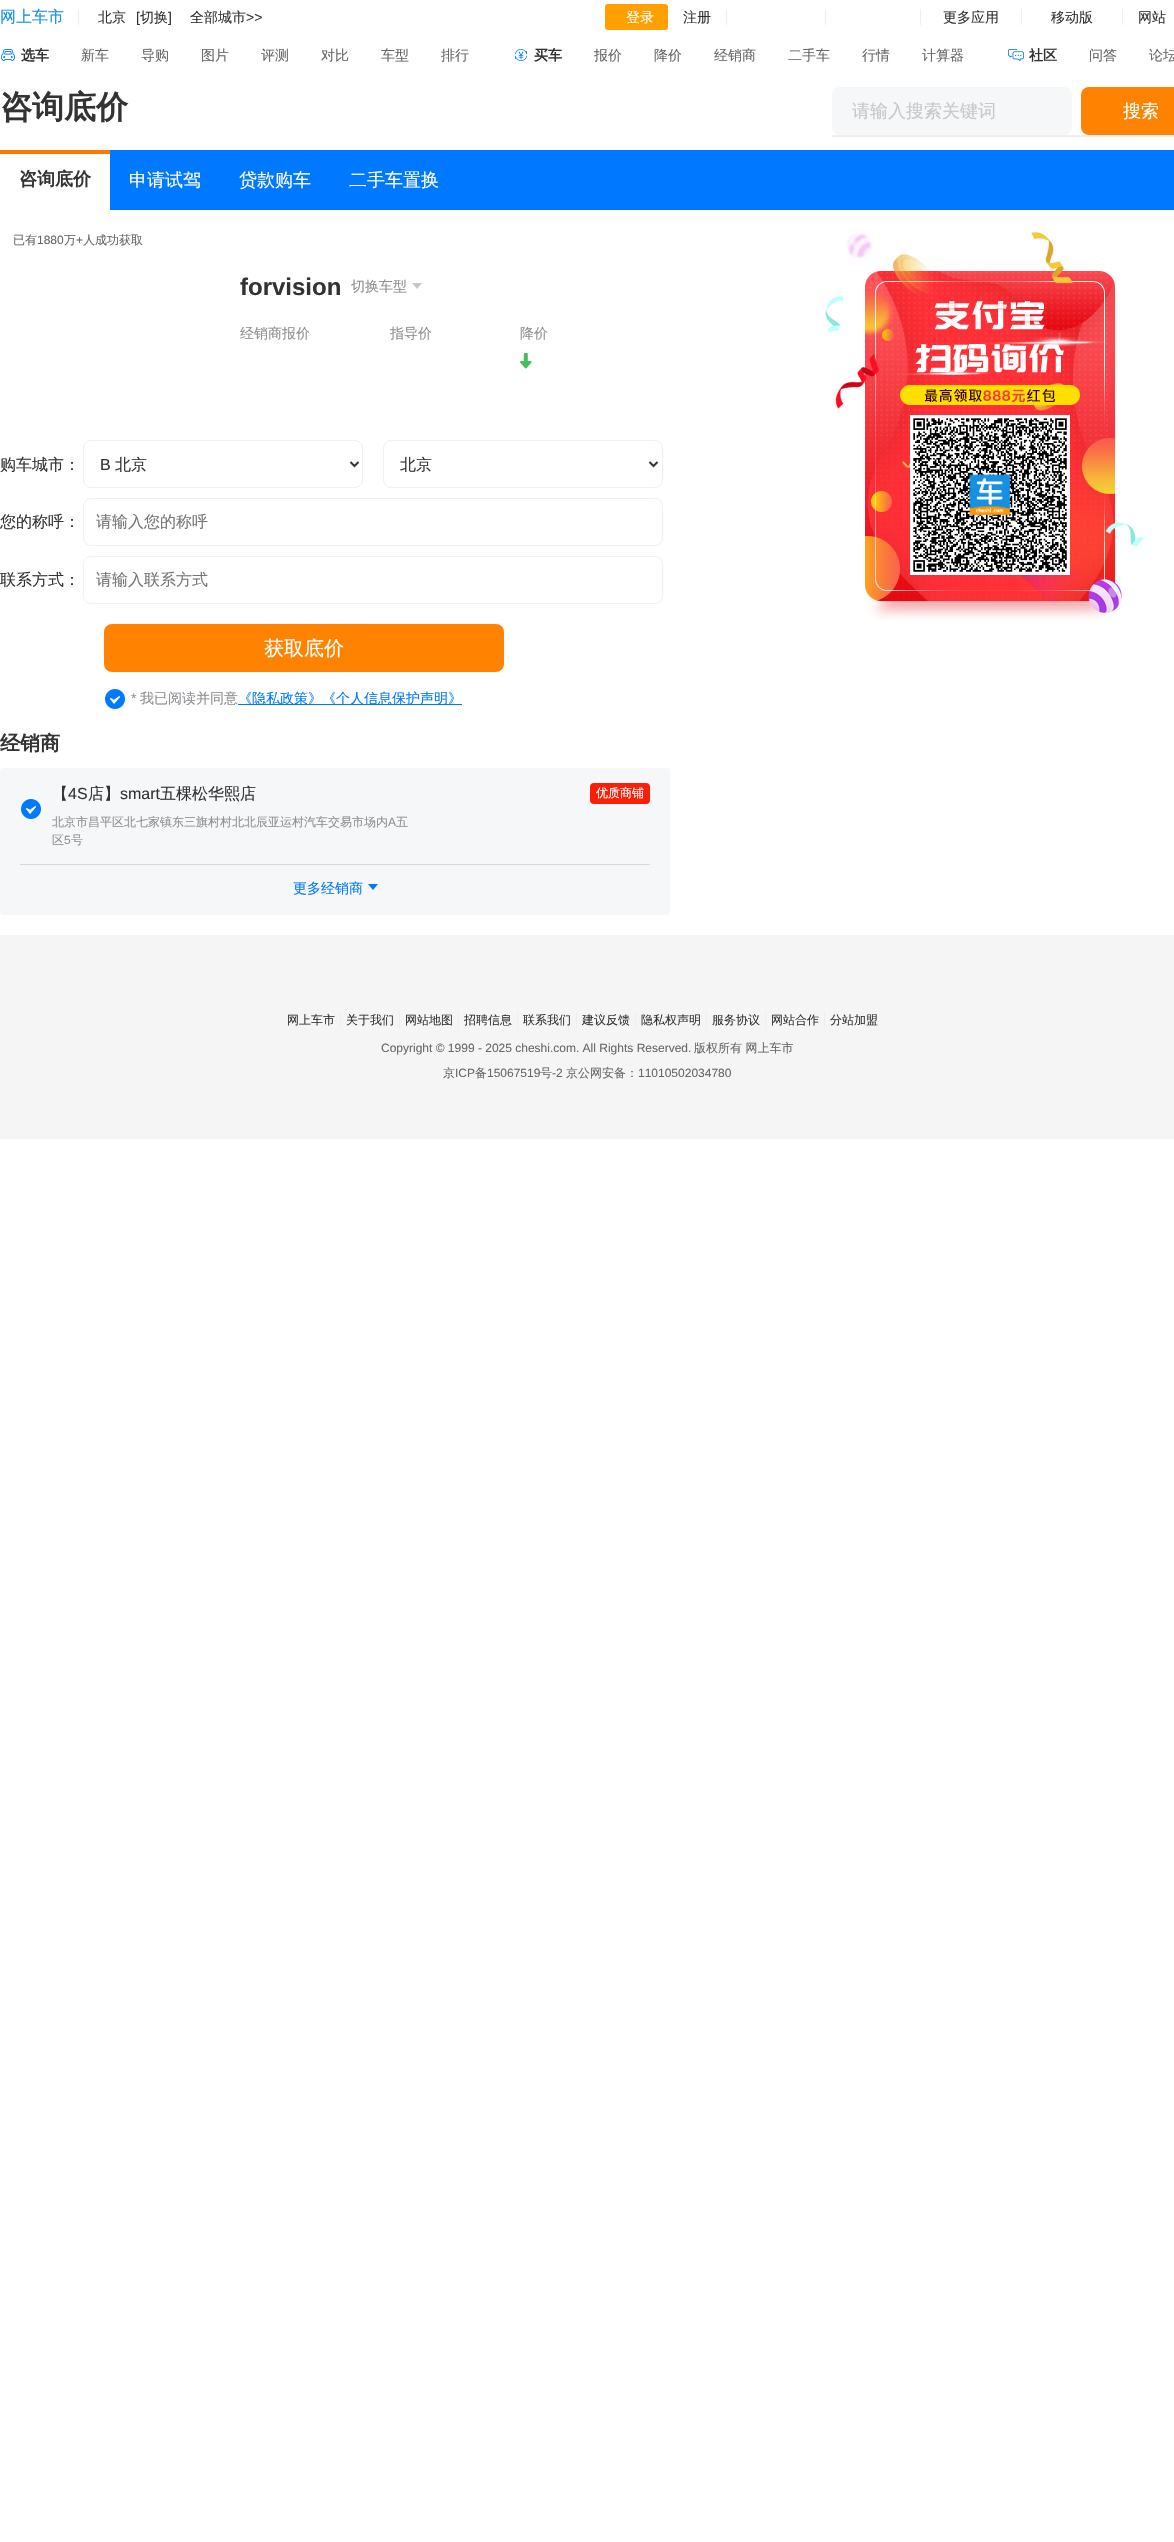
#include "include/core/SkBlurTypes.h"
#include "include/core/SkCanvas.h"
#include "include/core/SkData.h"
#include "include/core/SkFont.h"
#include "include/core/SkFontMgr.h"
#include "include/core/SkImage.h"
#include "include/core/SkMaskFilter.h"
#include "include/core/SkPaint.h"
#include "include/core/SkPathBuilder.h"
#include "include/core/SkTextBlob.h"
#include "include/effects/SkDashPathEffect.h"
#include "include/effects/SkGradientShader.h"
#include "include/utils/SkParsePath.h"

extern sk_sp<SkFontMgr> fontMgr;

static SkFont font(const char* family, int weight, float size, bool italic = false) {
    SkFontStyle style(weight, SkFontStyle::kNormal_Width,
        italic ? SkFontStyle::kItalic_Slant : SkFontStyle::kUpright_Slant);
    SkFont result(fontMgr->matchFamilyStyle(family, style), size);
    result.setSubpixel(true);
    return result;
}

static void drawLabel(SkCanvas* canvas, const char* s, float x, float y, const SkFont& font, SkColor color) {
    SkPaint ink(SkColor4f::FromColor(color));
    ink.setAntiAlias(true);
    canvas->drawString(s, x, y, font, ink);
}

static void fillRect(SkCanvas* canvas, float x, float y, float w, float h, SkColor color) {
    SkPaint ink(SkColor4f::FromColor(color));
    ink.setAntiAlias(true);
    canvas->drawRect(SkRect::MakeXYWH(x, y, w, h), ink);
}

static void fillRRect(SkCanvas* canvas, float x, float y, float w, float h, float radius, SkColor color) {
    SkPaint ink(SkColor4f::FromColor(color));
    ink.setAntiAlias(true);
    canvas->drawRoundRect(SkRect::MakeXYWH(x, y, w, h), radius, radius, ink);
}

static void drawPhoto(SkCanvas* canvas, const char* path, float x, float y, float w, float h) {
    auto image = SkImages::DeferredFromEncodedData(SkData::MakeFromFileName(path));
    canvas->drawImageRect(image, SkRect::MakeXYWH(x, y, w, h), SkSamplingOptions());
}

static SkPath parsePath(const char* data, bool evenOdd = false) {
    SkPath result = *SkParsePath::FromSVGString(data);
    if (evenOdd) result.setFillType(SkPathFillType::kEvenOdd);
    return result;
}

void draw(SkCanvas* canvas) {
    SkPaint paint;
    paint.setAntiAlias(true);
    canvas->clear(0xFFFFFFFF);
    SkFont font1 = font("WenQuanYi Zen Hei", 500, 16);
    drawLabel(canvas, "网上车市", 0, 22, font1, 0xFF1590E3);
    fillRect(canvas, 78, 9, 1, 16, 0xFFEEEEEE);
    SkFont font2 = font("WenQuanYi Zen Hei", 500, 14);
    drawLabel(canvas, "北京", 98, 22, font2, 0xFF333333);
    SkFont font3 = font("Liberation Sans", 400, 14);
    drawLabel(canvas, "[", 136, 22, font3, 0xFF333333);
    drawLabel(canvas, "切换", 140, 22, font2, 0xFF333333);
    drawLabel(canvas, "]", 168, 22, font3, 0xFF333333);
    drawLabel(canvas, "全部城市", 190, 22, font2, 0xFF333333);
    drawLabel(canvas, ">>", 246, 22, font3, 0xFF333333);
    fillRRect(canvas, 605, 4, 63, 26, 3, 0xFFFF9F00);
    drawLabel(canvas, "登录", 626, 22, font2, 0xFFFFFFFF);
    drawLabel(canvas, "注册", 683, 22, font2, 0xFF333333);
    fillRect(canvas, 726, 9, 1, 16, 0xFFEEEEEE);
    fillRect(canvas, 825, 9, 1, 16, 0xFFEEEEEE);
    fillRect(canvas, 920, 9, 1, 16, 0xFFEEEEEE);
    drawLabel(canvas, "更多应用", 943, 22, font2, 0xFF333333);
    fillRect(canvas, 1021, 9, 1, 16, 0xFFEEEEEE);
    drawLabel(canvas, "移动版", 1051, 22, font2, 0xFF333333);
    fillRect(canvas, 1122, 9, 1, 16, 0xFFEEEEEE);
    drawLabel(canvas, "网站", 1138, 22, font2, 0xFF333333);
    drawPhoto(canvas, "assets/img1.png", 1, 49, 14, 12);
    SkFont font4 = font("WenQuanYi Zen Hei", 700, 14);
    drawLabel(canvas, "选车", 21, 60, font4, 0xFF333333);
    drawLabel(canvas, "新车", 81, 60, font2, 0xFF666666);
    drawLabel(canvas, "导购", 141, 60, font2, 0xFF666666);
    drawLabel(canvas, "图片", 201, 60, font2, 0xFF666666);
    drawLabel(canvas, "评测", 261, 60, font2, 0xFF666666);
    drawLabel(canvas, "对比", 321, 60, font2, 0xFF666666);
    drawLabel(canvas, "车型", 381, 60, font2, 0xFF666666);
    drawLabel(canvas, "排行", 441, 60, font2, 0xFF666666);
    drawPhoto(canvas, "assets/img2.png", 515, 49, 12, 12);
    drawLabel(canvas, "买车", 534, 60, font4, 0xFF333333);
    drawLabel(canvas, "报价", 594, 60, font2, 0xFF666666);
    drawLabel(canvas, "降价", 654, 60, font2, 0xFF666666);
    drawLabel(canvas, "经销商", 714, 60, font2, 0xFF666666);
    drawLabel(canvas, "二手车", 788, 60, font2, 0xFF666666);
    drawLabel(canvas, "行情", 862, 60, font2, 0xFF666666);
    drawLabel(canvas, "计算器", 922, 60, font2, 0xFF666666);
    drawPhoto(canvas, "assets/img3.png", 1008, 49, 16, 12);
    drawLabel(canvas, "社区", 1029, 60, font4, 0xFF333333);
    drawLabel(canvas, "问答", 1089, 60, font2, 0xFF666666);
    drawLabel(canvas, "论坛", 1149, 60, font2, 0xFF666666);
    SkFont font5 = font("WenQuanYi Zen Hei", 700, 32);
    drawLabel(canvas, "咨询底价", 0, 118, font5, 0xFF333333);
    fillRRect(canvas, 832, 87, 240, 48, 8, 0xFFF6F7F8);
    SkFont font6 = font("WenQuanYi Zen Hei", 500, 18);
    drawLabel(canvas, "请输入搜索关键词", 852, 117, font6, 0xFFC7C7CC);
    fillRRect(canvas, 1081, 87, 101, 48, 8, 0xFFFF8201);
    drawLabel(canvas, "搜索", 1123, 117, font6, 0xFFFFFFFF);
    fillRect(canvas, 832, 135, 342, 2, 0xFFEFEFEF);
    fillRect(canvas, 110, 150, 1064, 60, 0xFF0078FF);
    fillRect(canvas, 0, 150, 110, 4, 0xFFFF7800);
    SkFont font7 = font("WenQuanYi Zen Hei", 700, 18);
    drawLabel(canvas, "咨询底价", 19, 185, font7, 0xFF333333);
    drawLabel(canvas, "申请试驾", 129, 186, font6, 0xFFFFFFFF);
    drawLabel(canvas, "贷款购车", 239, 186, font6, 0xFFFFFFFF);
    drawLabel(canvas, "二手车置换", 349, 186, font6, 0xFFFFFFFF);
    SkFont font8 = font("WenQuanYi Zen Hei", 500, 12);
    drawLabel(canvas, "已有", 13, 244, font8, 0xFF666666);
    SkFont font9 = font("Liberation Sans", 400, 12);
    drawLabel(canvas, "1880", 37, 244, font9, 0xFF666666);
    drawLabel(canvas, "万", 64, 244, font8, 0xFF666666);
    drawLabel(canvas, "+", 76, 244, font9, 0xFF666666);
    drawLabel(canvas, "人成功获取", 83, 244, font8, 0xFF666666);
    drawPhoto(canvas, "assets/img4.png", 825, 232, 320, 388);
    drawPhoto(canvas, "assets/img5.png", 897, 301, 211, 74);
    drawPhoto(canvas, "assets/img6.png", 900, 385, 180, 20);
    drawPhoto(canvas, "assets/img7.png", 910, 415, 160, 160);
    SkFont font10 = font("Liberation Sans", 700, 24);
    drawLabel(canvas, "forvision", 240, 295, font10, 0xFF333333);
    drawLabel(canvas, "切换车型", 351, 291, font2, 0xFF8E8E93);
    paint.setColor(0xFFC7C7C7);
    canvas->drawPath(parsePath("M412 283H422L417 289Z"), paint);
    drawLabel(canvas, "经销商报价", 240, 338, font2, 0xFF8E8E93);
    drawLabel(canvas, "指导价", 390, 338, font2, 0xFF8E8E93);
    drawLabel(canvas, "降价", 520, 338, font2, 0xFF8E8E93);
    drawPhoto(canvas, "assets/img8.png", 520, 353, 12, 16);
    drawLabel(canvas, "购车城市：", 0, 470, font1, 0xFF333333);
    paint.setStroke(true);
    paint.setStrokeWidth(1);
    paint.setColor(0xFFEFEFF4);
    canvas->drawRoundRect(SkRect::MakeXYWH(83.5f, 440.5f, 279, 47), 7.5f, 7.5f, paint);
    paint.setStrokeWidth(2);
    paint.setColor(0xFF333333);
    canvas->drawPath(parsePath("M350.5 462L354.5 466L358.5 462"), paint);
    SkFont font11 = font("Liberation Sans", 400, 16);
    drawLabel(canvas, "B", 100, 470, font11, 0xFF333333);
    drawLabel(canvas, "北京", 115, 470, font1, 0xFF333333);
    paint.setStrokeWidth(1);
    paint.setColor(0xFFEFEFF4);
    canvas->drawRoundRect(SkRect::MakeXYWH(383.5f, 440.5f, 279, 47), 7.5f, 7.5f, paint);
    paint.setStrokeWidth(2);
    paint.setColor(0xFF333333);
    canvas->drawPath(parsePath("M649.5 462L653.5 466L657.5 462"), paint);
    drawLabel(canvas, "北京", 400, 470, font1, 0xFF333333);
    drawLabel(canvas, "您的称呼：", 0, 527, font1, 0xFF333333);
    paint.setStrokeWidth(1);
    paint.setColor(0xFFEFEFF4);
    canvas->drawRoundRect(SkRect::MakeXYWH(83.5f, 498.5f, 579, 47), 7.5f, 7.5f, paint);
    drawLabel(canvas, "请输入您的称呼", 96, 527, font1, 0xFF757575);
    drawLabel(canvas, "联系方式：", 0, 585, font1, 0xFF333333);
    canvas->drawRoundRect(SkRect::MakeXYWH(83.5f, 556.5f, 579, 47), 7.5f, 7.5f, paint);
    drawLabel(canvas, "请输入联系方式", 96, 585, font1, 0xFF757575);
    fillRRect(canvas, 104, 624, 400, 48, 8, 0xFFFF8201);
    SkFont font12 = font("WenQuanYi Zen Hei", 500, 20);
    drawLabel(canvas, "获取底价", 264, 655, font12, 0xFFFFFFFF);
    drawPhoto(canvas, "assets/img9.png", 105, 689, 20, 20);
    drawLabel(canvas, "*", 131, 703, font3, 0xFF8E8E93);
    drawLabel(canvas, "我已阅读并同意", 140, 703, font2, 0xFF8E8E93);
    fillRect(canvas, 238, 704, 224, 1, 0xFF0078FF);
    drawLabel(canvas, "《隐私政策》《个人信息保护声明》", 238, 703, font2, 0xFF0078FF);
    SkFont font13 = font("WenQuanYi Zen Hei", 700, 20);
    drawLabel(canvas, "经销商", 0, 750, font13, 0xFF333333);
    fillRRect(canvas, 0, 768, 670, 147, 4, 0xFFF6F7F8);
    fillRect(canvas, 20, 864, 630, 1, 0xFFD8D8D8);
    drawLabel(canvas, "【", 52, 799, font1, 0xFF333333);
    drawLabel(canvas, "4S", 68, 799, font11, 0xFF333333);
    drawLabel(canvas, "店】", 88, 799, font1, 0xFF333333);
    drawLabel(canvas, "smart", 120, 799, font11, 0xFF333333);
    drawLabel(canvas, "五棵松华熙店", 160, 799, font1, 0xFF333333);
    drawLabel(canvas, "北京市昌平区北七家镇东三旗村村北北辰亚运村汽车交易市场内", 52, 826, font8, 0xFF8E8E93);
    drawLabel(canvas, "A", 388, 826, font9, 0xFF8E8E93);
    drawLabel(canvas, "五", 396, 826, font8, 0xFF8E8E93);
    drawLabel(canvas, "区", 52, 844, font8, 0xFF8E8E93);
    drawLabel(canvas, "5", 64, 844, font9, 0xFF8E8E93);
    drawLabel(canvas, "号", 71, 844, font8, 0xFF8E8E93);
    fillRRect(canvas, 590, 783, 60, 21, 4, 0xFFFA1F07);
    drawLabel(canvas, "优质商铺", 596, 797, font8, 0xFFFFFFFF);
    drawPhoto(canvas, "assets/img10.png", 21, 799, 20, 20);
    drawLabel(canvas, "更多经销商", 293, 893, font2, 0xFF0078FF);
    paint.setStroke(false);
    paint.setColor(0xFF0078FF);
    canvas->drawPath(parsePath("M368 884H378L373 890Z"), paint);
    fillRect(canvas, 0, 935, 1174, 204, 0xFFF5F5F5);
    fillRect(canvas, 340, 1012, 1, 17, 0xFFEEEEEE);
    drawLabel(canvas, "网上车市", 287, 1024, font8, 0xFF333333);
    fillRect(canvas, 399, 1012, 1, 17, 0xFFEEEEEE);
    drawLabel(canvas, "关于我们", 346, 1024, font8, 0xFF333333);
    fillRect(canvas, 458, 1012, 1, 17, 0xFFEEEEEE);
    drawLabel(canvas, "网站地图", 405, 1024, font8, 0xFF333333);
    fillRect(canvas, 517, 1012, 1, 17, 0xFFEEEEEE);
    drawLabel(canvas, "招聘信息", 464, 1024, font8, 0xFF333333);
    fillRect(canvas, 576, 1012, 1, 17, 0xFFEEEEEE);
    drawLabel(canvas, "联系我们", 523, 1024, font8, 0xFF333333);
    fillRect(canvas, 635, 1012, 1, 17, 0xFFEEEEEE);
    drawLabel(canvas, "建议反馈", 582, 1024, font8, 0xFF333333);
    fillRect(canvas, 706, 1012, 1, 17, 0xFFEEEEEE);
    drawLabel(canvas, "隐私权声明", 641, 1024, font8, 0xFF333333);
    fillRect(canvas, 765, 1012, 1, 17, 0xFFEEEEEE);
    drawLabel(canvas, "服务协议", 712, 1024, font8, 0xFF333333);
    fillRect(canvas, 824, 1012, 1, 17, 0xFFEEEEEE);
    drawLabel(canvas, "网站合作", 771, 1024, font8, 0xFF333333);
    drawLabel(canvas, "分站加盟", 830, 1024, font8, 0xFF333333);
    drawLabel(canvas, "Copyright © 1999 - 2025 cheshi.com. All Rights Reserved.", 381, 1052, font9, 0xFF666666);
    drawLabel(canvas, "版权所有 网上车市", 694, 1052, font8, 0xFF666666);
    drawLabel(canvas, "京", 443, 1077, font8, 0xFF666666);
    drawLabel(canvas, "ICP", 455, 1077, font9, 0xFF666666);
    drawLabel(canvas, "备", 475, 1077, font8, 0xFF666666);
    drawLabel(canvas, "15067519", 487, 1077, font9, 0xFF666666);
    drawLabel(canvas, "号", 540, 1077, font8, 0xFF666666);
    drawLabel(canvas, "-2", 552, 1077, font9, 0xFF666666);
    drawLabel(canvas, "京公网安备：", 566, 1077, font8, 0xFF666666);
    drawLabel(canvas, "11010502034780", 638, 1077, font9, 0xFF666666);
}
